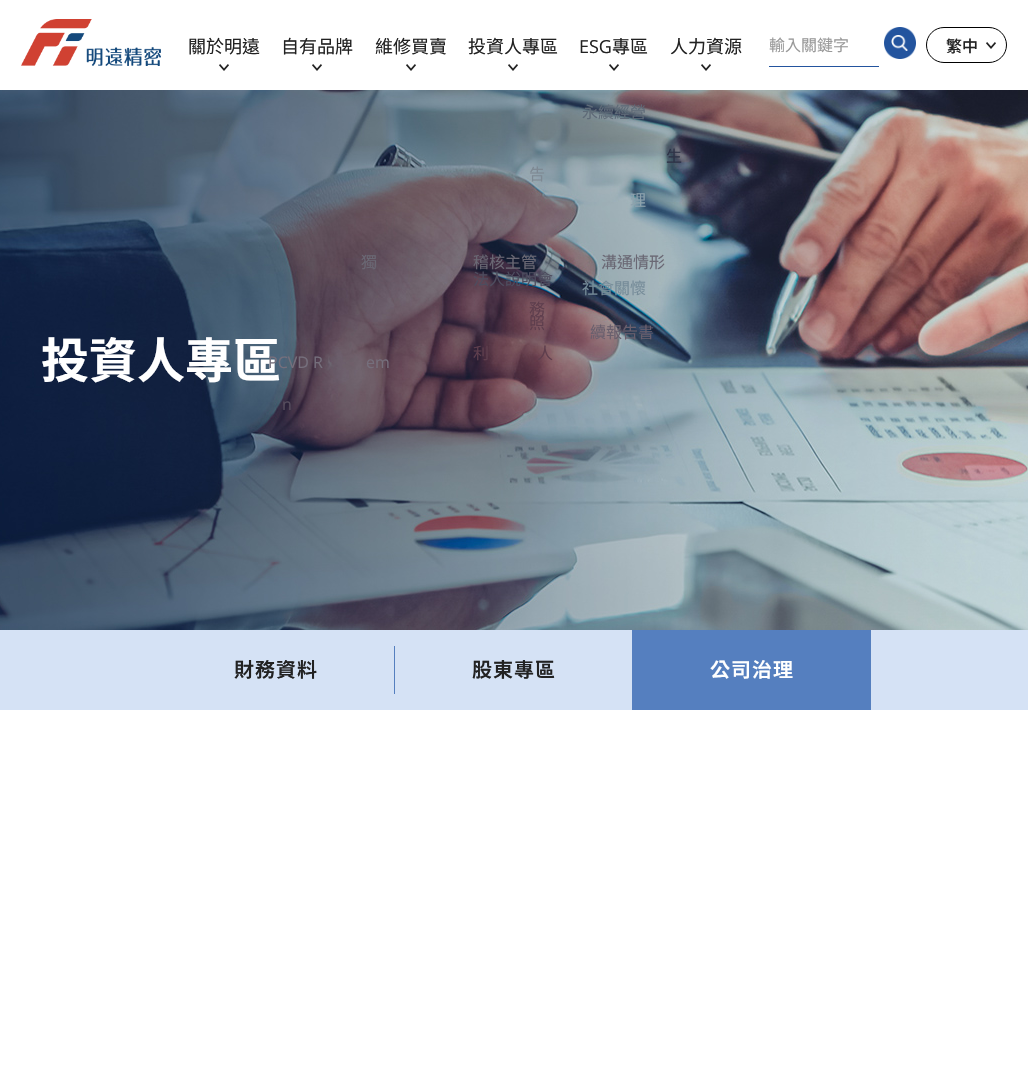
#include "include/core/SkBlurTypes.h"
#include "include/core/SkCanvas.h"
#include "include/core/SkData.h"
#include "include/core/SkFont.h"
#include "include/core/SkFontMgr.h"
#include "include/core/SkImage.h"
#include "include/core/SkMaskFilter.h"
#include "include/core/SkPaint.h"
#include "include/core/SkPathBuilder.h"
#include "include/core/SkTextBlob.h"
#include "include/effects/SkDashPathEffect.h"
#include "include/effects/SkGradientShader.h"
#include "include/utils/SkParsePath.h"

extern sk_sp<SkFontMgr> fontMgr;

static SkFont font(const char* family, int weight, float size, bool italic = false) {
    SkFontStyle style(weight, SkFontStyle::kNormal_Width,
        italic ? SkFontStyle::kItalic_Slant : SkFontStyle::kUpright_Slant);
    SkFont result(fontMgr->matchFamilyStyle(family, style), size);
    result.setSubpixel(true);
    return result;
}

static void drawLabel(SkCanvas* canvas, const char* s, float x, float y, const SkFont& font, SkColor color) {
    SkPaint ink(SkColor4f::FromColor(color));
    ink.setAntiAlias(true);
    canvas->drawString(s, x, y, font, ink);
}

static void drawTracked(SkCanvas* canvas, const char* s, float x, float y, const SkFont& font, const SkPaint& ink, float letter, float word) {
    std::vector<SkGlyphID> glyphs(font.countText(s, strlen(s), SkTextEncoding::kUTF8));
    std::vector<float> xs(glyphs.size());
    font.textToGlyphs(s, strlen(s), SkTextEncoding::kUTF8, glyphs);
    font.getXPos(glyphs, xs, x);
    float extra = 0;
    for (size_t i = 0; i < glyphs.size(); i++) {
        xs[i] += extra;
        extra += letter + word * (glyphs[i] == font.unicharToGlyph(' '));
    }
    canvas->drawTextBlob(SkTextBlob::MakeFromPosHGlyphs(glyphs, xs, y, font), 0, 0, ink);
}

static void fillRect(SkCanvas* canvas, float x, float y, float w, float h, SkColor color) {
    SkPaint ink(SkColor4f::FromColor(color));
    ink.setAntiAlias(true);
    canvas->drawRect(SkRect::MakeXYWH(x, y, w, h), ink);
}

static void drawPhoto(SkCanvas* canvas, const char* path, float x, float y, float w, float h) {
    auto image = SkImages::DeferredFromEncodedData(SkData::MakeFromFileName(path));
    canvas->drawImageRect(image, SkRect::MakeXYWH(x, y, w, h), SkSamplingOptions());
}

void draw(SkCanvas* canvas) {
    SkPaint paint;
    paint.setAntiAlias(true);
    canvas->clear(0xFFFFFFFF);
    drawPhoto(canvas, "assets/img1.png", 21, 19, 140, 47);
    SkFont font1 = font("Noto Sans TC", 400, 18);
    drawLabel(canvas, "關於明遠", 188, 53, font1, 0xFF222222);
    drawPhoto(canvas, "assets/img2.png", 219, 64, 10, 7);
    drawLabel(canvas, "自有品牌", 281, 53, font1, 0xFF222222);
    drawPhoto(canvas, "assets/img2.png", 312, 64, 10, 7);
    drawPhoto(canvas, "assets/img4.png", 0, 90, 1028, 540);
    SkFont font2 = font("Noto Sans TC", 700, 48);
    drawLabel(canvas, "投資人專區", 41, 378, font2, 0xFFFFFFFF);
    SkFont font3 = font("Open Sans", 400, 16);
    drawLabel(canvas, "PCVD R", 268, 368, font3, 0xFF756F7C);
    drawLabel(canvas, "em", 366, 368, font3, 0xFF756F7C);
    drawLabel(canvas, "n", 282, 410, font3, 0xFF564D5D);
    drawLabel(canvas, "投資人專區", 468, 53, font1, 0xFF222222);
    drawPhoto(canvas, "assets/img2.png", 508, 64, 10, 7);
    SkFont font4 = font("Noto Sans TC", 400, 16);
    drawLabel(canvas, "告", 529, 180, font4, 0xFF7E8993);
    drawLabel(canvas, "獨", 361, 268, font4, 0xFF6A6874);
    drawLabel(canvas, "稽核主管", 473, 268, font4, 0xFF6A6874);
    drawLabel(canvas, "溝通情形", 601, 268, font4, 0xFF6A6874);
    drawLabel(canvas, "照", 529, 329, font4, 0xFF5E3E4D);
    drawLabel(canvas, "利", 473, 359, font4, 0xFF5E3E4D);
    drawLabel(canvas, "人", 537, 359, font4, 0xFF5E3E4D);
    drawLabel(canvas, "法人說明會", 473, 285, font4, 0xFF4D4C5E);
    drawLabel(canvas, "務", 529, 315, font4, 0xFF5E3E4D);
    drawLabel(canvas, "維修買賣", 375, 53, font1, 0xFF222222);
    drawPhoto(canvas, "assets/img2.png", 406, 64, 10, 7);
    SkFont font5 = font("Open Sans", 400, 18);
    drawLabel(canvas, "ESG", 579, 53, font5, 0xFF222222);
    drawLabel(canvas, "專區", 612, 53, font1, 0xFF222222);
    drawPhoto(canvas, "assets/img2.png", 609, 64, 10, 7);
    drawLabel(canvas, "永續經營", 582, 118, font4, 0xFF5F6B78);
    drawLabel(canvas, "理", 630, 206, font4, 0xFF8DA2AD);
    drawLabel(canvas, "社會關懷", 582, 294, font4, 0xFF768C99);
    drawLabel(canvas, "續報告書", 590, 338, font4, 0xFF695F6D);
    drawLabel(canvas, "人力資源", 670, 53, font1, 0xFF222222);
    drawPhoto(canvas, "assets/img2.png", 701, 64, 10, 7);
    drawLabel(canvas, "生", 666, 162, font4, 0xFF2D3246);
    fillRect(canvas, 769, 66, 110, 1, 0xFF23549E);
    drawLabel(canvas, "輸入關鍵字", 769, 51, font4, 0xFF999999);
    drawPhoto(canvas, "assets/img3.png", 884, 27, 32, 32);
    drawPhoto(canvas, "assets/img2.png", 986, 42, 10, 7);
    paint.setStroke(true);
    paint.setStrokeWidth(1);
    paint.setColor(0xFF000000);
    canvas->drawRoundRect(SkRect::MakeXYWH(926.5f, 27.5f, 80, 35), 17.5f, 17.5f, paint);
    SkFont font6 = font("Noto Sans TC", 500, 16);
    drawLabel(canvas, "繁中", 946, 52, font6, 0xFF222222);
    fillRect(canvas, 0, 630, 1028, 80, 0xFFD5E2F5);
    SkFont font7 = font("Noto Sans TC", 600, 20);
    paint.setStroke(false);
    paint.setColor(0xFF222222);
    drawTracked(canvas, "財務資料", 234, 677, font7, paint, 1, 0);
    fillRect(canvas, 394, 646, 1, 48, 0xFF557FBF);
    drawTracked(canvas, "股東專區", 472, 677, font7, paint, 1, 0);
    fillRect(canvas, 632, 630, 239, 80, 0xFF557FBF);
    paint.setColor(0xFFFFFFFF);
    drawTracked(canvas, "公司治理", 710, 677, font7, paint, 1, 0);
}
